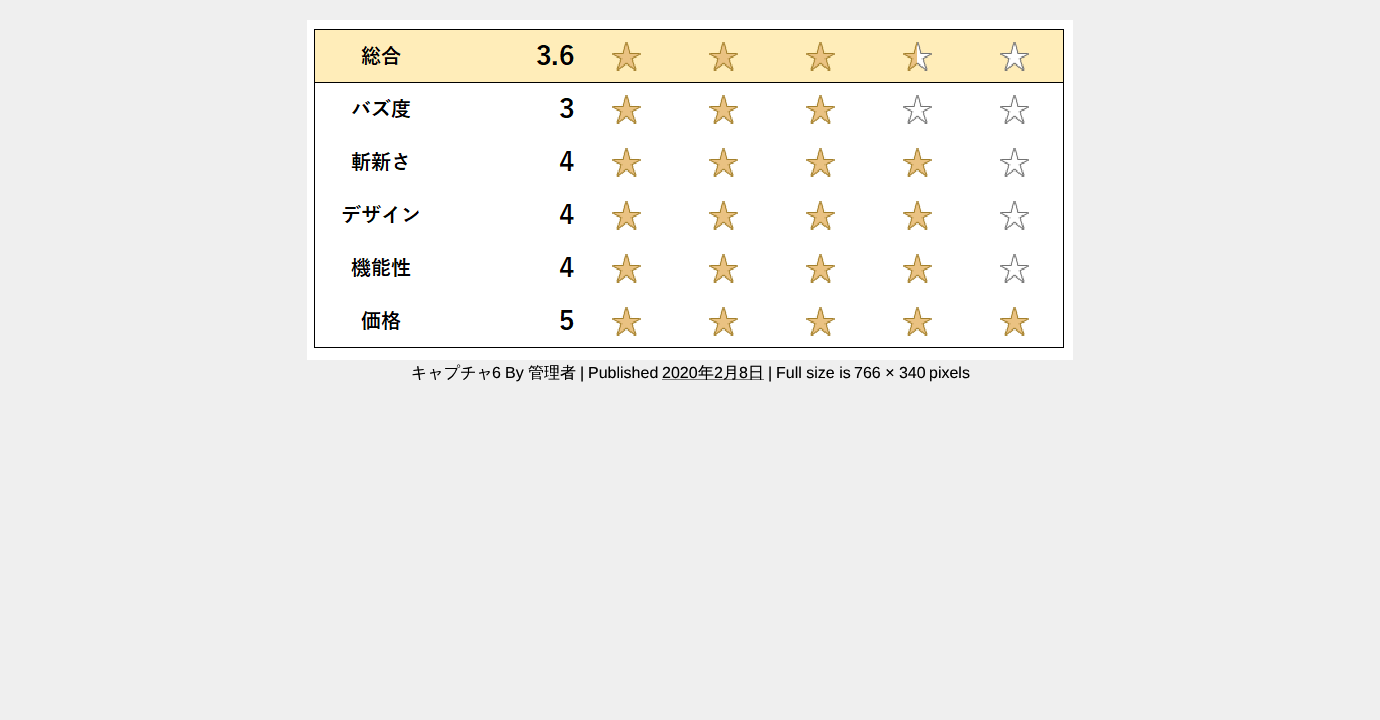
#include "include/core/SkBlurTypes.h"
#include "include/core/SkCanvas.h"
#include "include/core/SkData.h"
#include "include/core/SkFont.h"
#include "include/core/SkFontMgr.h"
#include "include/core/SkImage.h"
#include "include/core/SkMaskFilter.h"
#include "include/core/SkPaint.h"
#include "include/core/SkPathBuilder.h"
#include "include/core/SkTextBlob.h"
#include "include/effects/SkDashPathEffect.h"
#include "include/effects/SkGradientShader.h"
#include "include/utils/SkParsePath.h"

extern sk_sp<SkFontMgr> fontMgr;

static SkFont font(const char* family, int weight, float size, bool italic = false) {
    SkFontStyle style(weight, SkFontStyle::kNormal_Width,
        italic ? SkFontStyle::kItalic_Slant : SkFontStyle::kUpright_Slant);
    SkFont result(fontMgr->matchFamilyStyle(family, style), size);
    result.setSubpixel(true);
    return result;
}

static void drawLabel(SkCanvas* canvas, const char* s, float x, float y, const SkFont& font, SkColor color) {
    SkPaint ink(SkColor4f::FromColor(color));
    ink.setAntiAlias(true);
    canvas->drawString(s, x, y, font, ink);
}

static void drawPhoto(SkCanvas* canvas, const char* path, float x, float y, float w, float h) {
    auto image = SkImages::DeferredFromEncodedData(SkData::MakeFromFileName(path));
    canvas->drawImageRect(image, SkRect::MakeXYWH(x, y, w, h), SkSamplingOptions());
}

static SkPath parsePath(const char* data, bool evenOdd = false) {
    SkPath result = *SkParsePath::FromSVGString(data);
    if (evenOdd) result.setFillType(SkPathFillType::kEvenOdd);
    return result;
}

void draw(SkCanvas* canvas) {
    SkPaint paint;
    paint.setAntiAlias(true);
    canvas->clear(0xFFEFEFEF);
    drawPhoto(canvas, "assets/img1.png", 307, 20, 766, 340);
    SkFont font1 = font("WenQuanYi Zen Hei", 500, 16);
    drawLabel(canvas, "キャプチャ", 411, 378, font1, 0xFF000000);
    SkFont font2 = font("Liberation Sans", 400, 16);
    drawLabel(canvas, "6", 492, 378, font2, 0xFF000000);
    drawLabel(canvas, "By", 505, 378, font2, 0xFF000000);
    drawLabel(canvas, "管理者", 528, 378, font1, 0xFF000000);
    drawLabel(canvas, "|", 580, 378, font2, 0xFF000000);
    drawLabel(canvas, "Published", 588, 378, font2, 0xFF000000);
    drawLabel(canvas, "2020", 662, 378, font2, 0xFF000000);
    paint.setStroke(true);
    paint.setStrokeWidth(1);
    paint.setColor(0xFF000000);
    paint.setPathEffect(SkDashPathEffect::Make({{1, 1}}, 0));
    canvas->drawPath(parsePath("M662.5 379.5H764"), paint);
    paint.setPathEffect(nullptr);
    drawLabel(canvas, "年", 698, 378, font1, 0xFF000000);
    drawLabel(canvas, "2", 714, 378, font2, 0xFF000000);
    drawLabel(canvas, "月", 723, 378, font1, 0xFF000000);
    drawLabel(canvas, "8", 739, 378, font2, 0xFF000000);
    drawLabel(canvas, "日", 748, 378, font1, 0xFF000000);
    drawLabel(canvas, "|", 768, 378, font2, 0xFF000000);
    drawLabel(canvas, "Full size is", 776, 378, font2, 0xFF000000);
    drawLabel(canvas, "766 × 340", 854, 378, font2, 0xFF000000);
    drawLabel(canvas, "pixels", 929, 378, font2, 0xFF000000);
}
